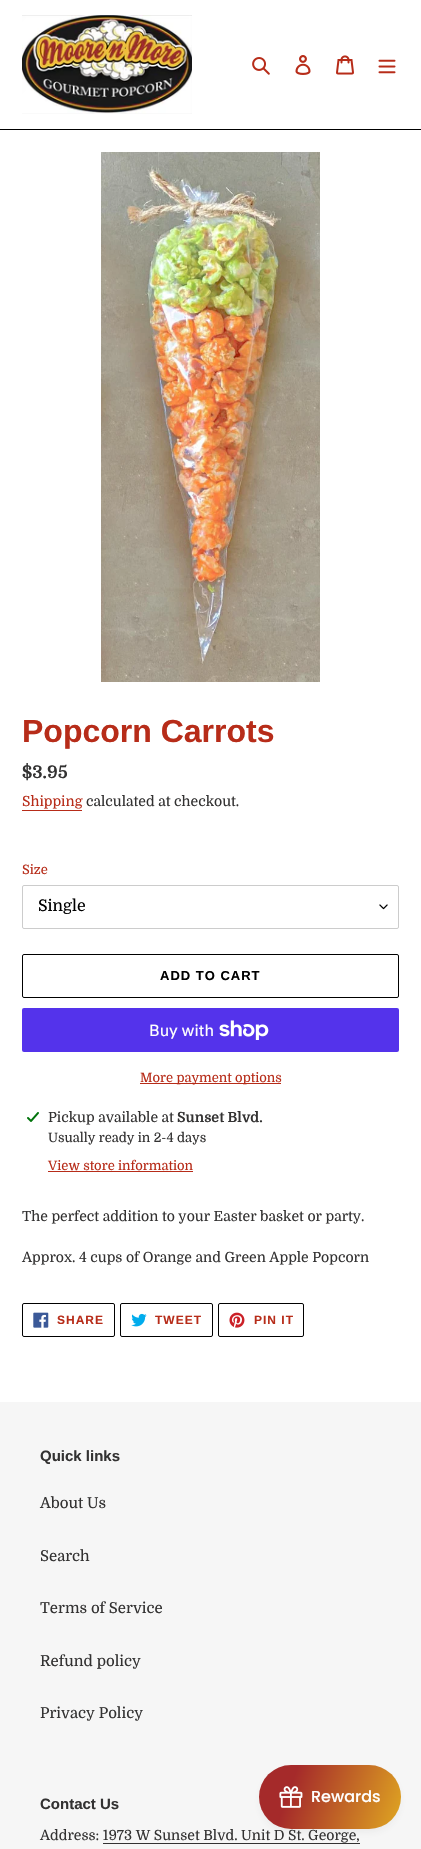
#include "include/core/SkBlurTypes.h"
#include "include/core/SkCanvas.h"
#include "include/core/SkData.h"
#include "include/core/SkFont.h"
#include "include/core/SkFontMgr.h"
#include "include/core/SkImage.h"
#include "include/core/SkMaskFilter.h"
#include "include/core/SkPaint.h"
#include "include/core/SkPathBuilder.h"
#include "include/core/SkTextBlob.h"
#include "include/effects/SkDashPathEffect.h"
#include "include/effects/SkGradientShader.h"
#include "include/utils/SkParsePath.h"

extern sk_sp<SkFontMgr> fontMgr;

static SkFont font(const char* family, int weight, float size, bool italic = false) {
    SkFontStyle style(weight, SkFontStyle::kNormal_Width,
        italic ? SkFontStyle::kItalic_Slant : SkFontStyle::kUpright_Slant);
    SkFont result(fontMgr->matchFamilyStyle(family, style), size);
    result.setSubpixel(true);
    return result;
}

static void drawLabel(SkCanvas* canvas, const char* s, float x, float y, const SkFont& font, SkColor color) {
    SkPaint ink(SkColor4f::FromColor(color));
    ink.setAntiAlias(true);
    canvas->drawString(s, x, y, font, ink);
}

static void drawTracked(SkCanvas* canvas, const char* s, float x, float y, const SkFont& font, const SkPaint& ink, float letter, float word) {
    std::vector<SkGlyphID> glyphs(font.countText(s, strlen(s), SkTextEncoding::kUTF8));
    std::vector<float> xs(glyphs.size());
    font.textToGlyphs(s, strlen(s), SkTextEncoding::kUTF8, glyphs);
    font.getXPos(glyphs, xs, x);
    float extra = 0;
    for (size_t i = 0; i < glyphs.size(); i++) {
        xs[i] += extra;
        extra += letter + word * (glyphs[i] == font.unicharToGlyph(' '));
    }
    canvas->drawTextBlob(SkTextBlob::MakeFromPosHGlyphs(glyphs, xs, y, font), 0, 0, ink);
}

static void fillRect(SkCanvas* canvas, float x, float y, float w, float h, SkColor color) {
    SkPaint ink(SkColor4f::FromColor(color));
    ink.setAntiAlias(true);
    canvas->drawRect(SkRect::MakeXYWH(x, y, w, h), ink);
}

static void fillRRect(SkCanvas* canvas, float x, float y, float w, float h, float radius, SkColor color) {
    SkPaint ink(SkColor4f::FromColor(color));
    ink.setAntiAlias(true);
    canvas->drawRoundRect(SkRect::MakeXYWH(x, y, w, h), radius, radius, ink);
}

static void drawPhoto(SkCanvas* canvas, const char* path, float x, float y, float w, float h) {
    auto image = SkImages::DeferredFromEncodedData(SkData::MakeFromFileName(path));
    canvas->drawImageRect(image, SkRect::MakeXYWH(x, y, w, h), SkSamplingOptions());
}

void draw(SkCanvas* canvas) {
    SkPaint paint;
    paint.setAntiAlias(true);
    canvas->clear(0xFFFFFFFF);
    fillRect(canvas, 0, 129, 421, 1, 0xFF000000);
    drawPhoto(canvas, "assets/img1.png", 22, 15, 170, 99);
    drawPhoto(canvas, "assets/img2.png", 252, 57, 18, 18);
    drawPhoto(canvas, "assets/img3.png", 295, 55, 16, 20);
    drawPhoto(canvas, "assets/img4.png", 336, 55, 18, 20);
    drawPhoto(canvas, "assets/img5.png", 378, 59, 18, 15);
    drawPhoto(canvas, "assets/img6.png", 101, 152, 219, 530);
    SkFont font1 = font("Liberation Sans", 700, 32);
    drawLabel(canvas, "Popcorn Carrots", 22, 742, font1, 0xFFB72C19);
    SkFont font2 = font("Domine", 700, 17.5f);
    drawLabel(canvas, "$3.95", 22, 778, font2, 0xFF333232);
    SkFont font3 = font("Domine", 400, 14);
    drawLabel(canvas, "Shipping", 22, 806, font3, 0xFFB72C19);
    fillRect(canvas, 22, 810, 60, 1, 0xFFB72C19);
    drawLabel(canvas, "calculated at checkout.", 86, 806, font3, 0xFF333232);
    SkFont font4 = font("Domine", 400, 13);
    drawLabel(canvas, "Size", 22, 874, font4, 0xFFB72C19);
    drawPhoto(canvas, "assets/img7.png", 379, 904, 9, 6);
    paint.setStroke(true);
    paint.setStrokeWidth(1);
    paint.setColor(0xFFCCCCCC);
    canvas->drawRoundRect(SkRect::MakeXYWH(22.5f, 885.5f, 376, 43), 1.5f, 1.5f, paint);
    SkFont font5 = font("Domine", 400, 16);
    drawLabel(canvas, "Single", 38, 911, font5, 0xFF000000);
    paint.setColor(0xFF000000);
    canvas->drawRoundRect(SkRect::MakeXYWH(22.5f, 954.5f, 376, 43), 1.5f, 1.5f, paint);
    SkFont font6 = font("Liberation Sans", 700, 13);
    paint.setStroke(false);
    drawTracked(canvas, "ADD TO CART", 160, 980, font6, paint, 1, 0);
    fillRRect(canvas, 22, 1008, 377, 44, 2, 0xFF5433EB);
    SkFont font7 = font("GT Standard", 400, 16);
    drawLabel(canvas, "Buy with", 149, 1036, font7, 0xFFFFFFFF);
    drawPhoto(canvas, "assets/img8.png", 219, 1020, 50, 20);
    fillRect(canvas, 140, 1083, 141, 1, 0xFFB72C19);
    drawLabel(canvas, "More payment options", 140, 1082, font4, 0xFFB72C19);
    drawPhoto(canvas, "assets/img9.png", 27, 1112, 12, 10);
    drawLabel(canvas, "Pickup available at", 48, 1122, font3, 0xFF333232);
    SkFont font8 = font("Domine", 700, 14);
    drawLabel(canvas, "Sunset Blvd.", 177, 1122, font8, 0xFF333232);
    drawLabel(canvas, "Usually ready in 2-4 days", 48, 1142, font4, 0xFF333232);
    drawLabel(canvas, "View store information", 48, 1170, font4, 0xFFB72C19);
    fillRect(canvas, 48, 1171, 145, 1, 0xFFB72C19);
    drawLabel(canvas, "The perfect addition to your Easter basket or party.", 22, 1221, font3, 0xFF333232);
    drawLabel(canvas, "Approx. 4 cups of Orange and Green Apple Popcorn", 22, 1262, font3, 0xFF333232);
    paint.setStroke(true);
    canvas->drawRoundRect(SkRect::MakeXYWH(22.5f, 1303.5f, 92, 33), 1.5f, 1.5f, paint);
    drawPhoto(canvas, "assets/img10.png", 33, 1312, 16, 16);
    SkFont font9 = font("Liberation Sans", 700, 12);
    paint.setStroke(false);
    paint.setColor(0xFFB72C19);
    drawTracked(canvas, "SHARE", 57, 1324, font9, paint, 1, 0);
    paint.setStroke(true);
    paint.setColor(0xFF000000);
    canvas->drawRoundRect(SkRect::MakeXYWH(120.5f, 1303.5f, 92, 33), 1.5f, 1.5f, paint);
    drawPhoto(canvas, "assets/img11.png", 131, 1313, 16, 14);
    paint.setStroke(false);
    paint.setColor(0xFFB72C19);
    drawTracked(canvas, "TWEET", 155, 1324, font9, paint, 1, 0);
    paint.setStroke(true);
    paint.setColor(0xFF000000);
    canvas->drawRoundRect(SkRect::MakeXYWH(218.5f, 1303.5f, 85, 33), 1.5f, 1.5f, paint);
    drawPhoto(canvas, "assets/img12.png", 229, 1312, 16, 16);
    paint.setStroke(false);
    paint.setColor(0xFFB72C19);
    drawTracked(canvas, "PIN IT", 254, 1324, font9, paint, 1, 0);
    fillRect(canvas, 0, 1402, 421, 447, 0xFFF6F6F6);
    SkFont font10 = font("Liberation Sans", 700, 15);
    drawLabel(canvas, "Quick links", 40, 1461, font10, 0xFF333232);
    SkFont font11 = font("Domine", 400, 15);
    drawLabel(canvas, "About Us", 40, 1508, font11, 0xFF333232);
    drawLabel(canvas, "Search", 40, 1561, font11, 0xFF333232);
    drawLabel(canvas, "Terms of Service", 40, 1613, font11, 0xFF333232);
    drawLabel(canvas, "Refund policy", 40, 1666, font11, 0xFF333232);
    drawLabel(canvas, "Privacy Policy", 40, 1718, font11, 0xFF333232);
    drawLabel(canvas, "Contact Us", 40, 1809, font10, 0xFF333232);
    drawLabel(canvas, "Address: 1973 W Sunset Blvd. Unit D St. George,", 40, 1840, font3, 0xFF333232);
    fillRect(canvas, 103, 1843, 257, 1, 0xFF333232);
    paint.setColor(0x14444444);
    paint.setMaskFilter(SkMaskFilter::MakeBlur(kNormal_SkBlurStyle, 4));
    canvas->drawRoundRect(SkRect::MakeXYWH(261, 1771, 138, 60), 30, 30, paint);
    paint.setMaskFilter(nullptr);
    {
        const SkColor colors[] = {0xFFA52A2A, 0xFFFFE91D};
        const float stops[] = {0.17f, 1};
        const SkPoint ends[] = {{257, 1771}, {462, 1844}};
        paint.setShader(SkGradientShader::MakeLinear(ends, colors, stops, 2, SkTileMode::kClamp));
        paint.setAlpha(255);
    }
    canvas->drawRoundRect(SkRect::MakeXYWH(259, 1765, 142, 64), 32, 32, paint);
    drawPhoto(canvas, "assets/img13.png", 279, 1786, 24, 22);
    SkFont font12 = font("Poppins", 500, 16);
    drawLabel(canvas, "Rewards", 311, 1802, font12, 0xFFFFFFFF);
}
